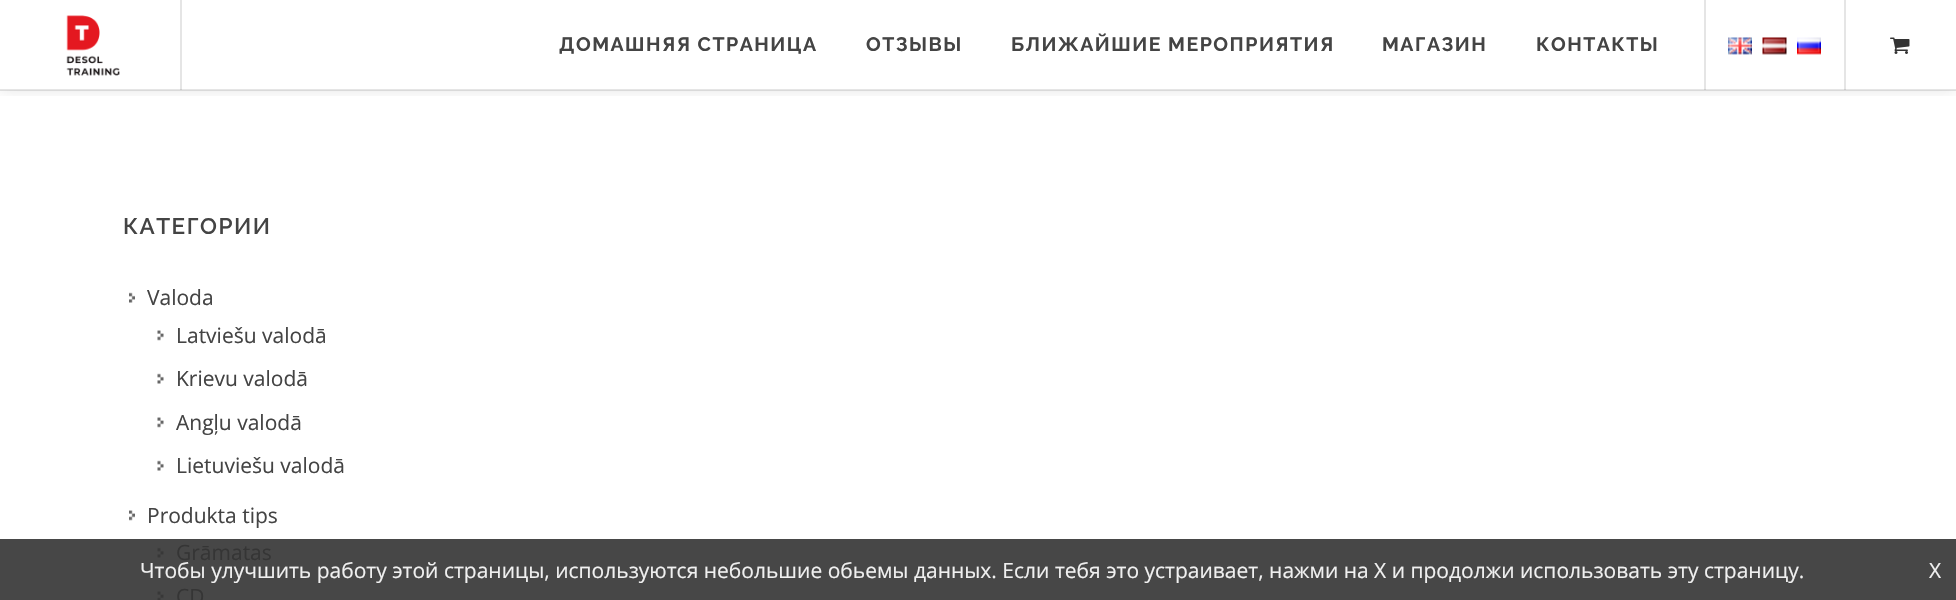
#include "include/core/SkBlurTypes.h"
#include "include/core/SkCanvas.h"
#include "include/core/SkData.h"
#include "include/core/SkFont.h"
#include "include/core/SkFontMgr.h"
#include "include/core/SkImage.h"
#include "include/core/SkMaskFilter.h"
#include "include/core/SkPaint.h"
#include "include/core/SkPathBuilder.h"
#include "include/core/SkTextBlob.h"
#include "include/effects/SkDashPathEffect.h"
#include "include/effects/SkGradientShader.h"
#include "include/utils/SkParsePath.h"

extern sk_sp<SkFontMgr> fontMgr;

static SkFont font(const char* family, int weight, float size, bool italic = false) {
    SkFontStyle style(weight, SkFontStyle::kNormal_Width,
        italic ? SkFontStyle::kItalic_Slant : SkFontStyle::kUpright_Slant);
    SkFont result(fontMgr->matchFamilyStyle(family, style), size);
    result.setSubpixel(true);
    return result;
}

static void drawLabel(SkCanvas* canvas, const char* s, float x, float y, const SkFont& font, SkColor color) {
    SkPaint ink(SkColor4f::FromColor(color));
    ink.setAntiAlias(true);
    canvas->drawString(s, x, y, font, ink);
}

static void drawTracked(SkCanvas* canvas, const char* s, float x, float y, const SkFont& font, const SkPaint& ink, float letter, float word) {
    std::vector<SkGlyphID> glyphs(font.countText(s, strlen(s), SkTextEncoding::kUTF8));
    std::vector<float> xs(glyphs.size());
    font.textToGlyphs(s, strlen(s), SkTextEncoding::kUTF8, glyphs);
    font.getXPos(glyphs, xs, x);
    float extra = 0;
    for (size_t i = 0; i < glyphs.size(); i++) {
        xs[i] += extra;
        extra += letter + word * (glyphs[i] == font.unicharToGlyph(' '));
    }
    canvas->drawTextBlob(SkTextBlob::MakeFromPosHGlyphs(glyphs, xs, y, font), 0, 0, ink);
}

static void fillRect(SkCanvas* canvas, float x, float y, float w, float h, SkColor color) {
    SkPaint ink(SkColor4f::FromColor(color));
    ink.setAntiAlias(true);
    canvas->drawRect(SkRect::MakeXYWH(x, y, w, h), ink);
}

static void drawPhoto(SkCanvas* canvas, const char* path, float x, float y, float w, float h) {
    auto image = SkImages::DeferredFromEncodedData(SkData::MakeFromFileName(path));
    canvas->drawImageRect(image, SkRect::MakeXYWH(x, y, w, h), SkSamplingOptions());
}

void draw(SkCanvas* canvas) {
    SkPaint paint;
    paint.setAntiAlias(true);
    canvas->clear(0xFFFFFFFF);
    fillRect(canvas, 0, 539, 1956, 61, 0xFF474747);
    canvas->save();
    canvas->clipRect(SkRect::MakeXYWH(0, 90, 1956, 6));
    paint.setColor(0x1A000000);
    paint.setMaskFilter(SkMaskFilter::MakeBlur(kNormal_SkBlurStyle, 7.5f));
    canvas->drawRect(SkRect::MakeXYWH(0, 0, 1956, 90), paint);
    paint.setMaskFilter(nullptr);
    canvas->restore();
    fillRect(canvas, 0, 89, 1956, 2, 0x1A000000);
    fillRect(canvas, 180, 0, 2, 90, 0x1A000000);
    drawPhoto(canvas, "assets/img1.png", 66, 15, 54, 61);
    fillRect(canvas, 1704, 0, 2, 90, 0x1A000000);
    SkFont font1 = font("Raleway", 700, 19.5f);
    paint.setColor(0xFF444444);
    drawTracked(canvas, "ДОМАШНЯЯ СТРАНИЦА", 559, 51, font1, paint, 1.5f, 0);
    drawTracked(canvas, "ОТЗЫВЫ", 866, 51, font1, paint, 1.5f, 0);
    drawTracked(canvas, "БЛИЖАЙШИЕ МЕРОПРИЯТИЯ", 1011, 51, font1, paint, 1.5f, 0);
    drawTracked(canvas, "МАГАЗИН", 1382, 51, font1, paint, 1.5f, 0);
    drawTracked(canvas, "КОНТАКТЫ", 1536, 51, font1, paint, 1.5f, 0);
    fillRect(canvas, 1844, 0, 2, 90, 0x1A000000);
    drawPhoto(canvas, "assets/img2.png", 1728, 37, 24, 18);
    drawPhoto(canvas, "assets/img3.png", 1762, 37, 25, 18);
    drawPhoto(canvas, "assets/img4.png", 1797, 37, 24, 18);
    drawPhoto(canvas, "assets/img5.png", 1890, 37, 20, 17);
    SkFont font2 = font("Raleway", 600, 22.5f);
    drawTracked(canvas, "КАТЕГОРИИ", 123, 234, font2, paint, 1.5f, 0);
    drawPhoto(canvas, "assets/img6.png", 129, 292, 6, 11);
    SkFont font3 = font("Open Sans", 400, 21);
    drawLabel(canvas, "Valoda", 147, 305, font3, 0xFF444444);
    drawPhoto(canvas, "assets/img7.png", 157, 330, 7, 11);
    drawLabel(canvas, "Latviešu valodā", 176, 343, font3, 0xFF444444);
    drawPhoto(canvas, "assets/img8.png", 157, 373, 7, 11);
    drawLabel(canvas, "Krievu valodā", 176, 386, font3, 0xFF444444);
    drawPhoto(canvas, "assets/img7.png", 157, 417, 7, 11);
    drawLabel(canvas, "Angļu valodā", 176, 430, font3, 0xFF444444);
    drawPhoto(canvas, "assets/img8.png", 157, 460, 7, 11);
    drawLabel(canvas, "Lietuviešu valodā", 176, 473, font3, 0xFF444444);
    drawPhoto(canvas, "assets/img9.png", 129, 510, 6, 11);
    drawLabel(canvas, "Produkta tips", 147, 523, font3, 0xFF444444);
    drawPhoto(canvas, "assets/img10.png", 157, 547, 7, 11);
    drawLabel(canvas, "Grāmatas", 176, 560, font3, 0xFF353535);
    drawPhoto(canvas, "assets/img11.png", 157, 591, 7, 9);
    drawLabel(canvas, "CD", 176, 604, font3, 0xFF353535);
    drawLabel(canvas, "Чтобы улучшить работу этой страницы, используются небольшие обьемы данных. Если тебя это устраивает, нажми на X и продолжи использовать эту страницу.", 140, 578, font3, 0xFFF0F0F0);
    drawLabel(canvas, "X", 1929, 578, font3, 0xFFF0F0F0);
}
